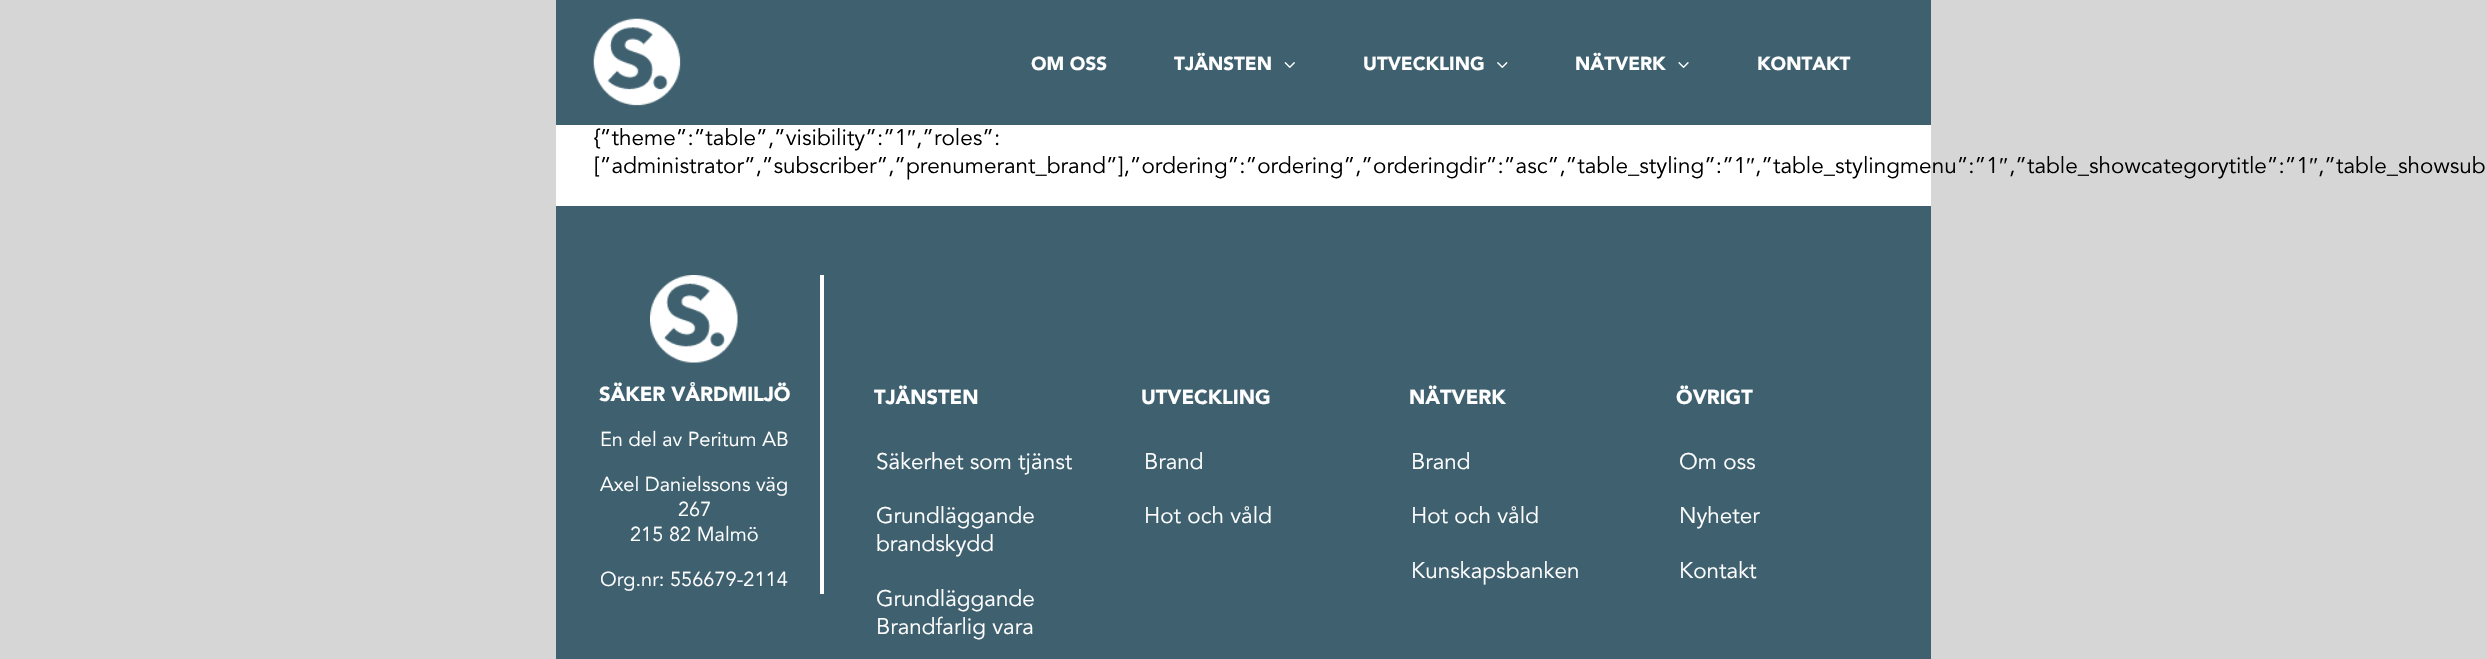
#include "include/core/SkBlurTypes.h"
#include "include/core/SkCanvas.h"
#include "include/core/SkData.h"
#include "include/core/SkFont.h"
#include "include/core/SkFontMgr.h"
#include "include/core/SkImage.h"
#include "include/core/SkMaskFilter.h"
#include "include/core/SkPaint.h"
#include "include/core/SkPathBuilder.h"
#include "include/core/SkTextBlob.h"
#include "include/effects/SkDashPathEffect.h"
#include "include/effects/SkGradientShader.h"
#include "include/utils/SkParsePath.h"

extern sk_sp<SkFontMgr> fontMgr;

static SkFont font(const char* family, int weight, float size, bool italic = false) {
    SkFontStyle style(weight, SkFontStyle::kNormal_Width,
        italic ? SkFontStyle::kItalic_Slant : SkFontStyle::kUpright_Slant);
    SkFont result(fontMgr->matchFamilyStyle(family, style), size);
    result.setSubpixel(true);
    return result;
}

static void drawLabel(SkCanvas* canvas, const char* s, float x, float y, const SkFont& font, SkColor color) {
    SkPaint ink(SkColor4f::FromColor(color));
    ink.setAntiAlias(true);
    canvas->drawString(s, x, y, font, ink);
}

static void fillRect(SkCanvas* canvas, float x, float y, float w, float h, SkColor color) {
    SkPaint ink(SkColor4f::FromColor(color));
    ink.setAntiAlias(true);
    canvas->drawRect(SkRect::MakeXYWH(x, y, w, h), ink);
}

static void drawPhoto(SkCanvas* canvas, const char* path, float x, float y, float w, float h) {
    auto image = SkImages::DeferredFromEncodedData(SkData::MakeFromFileName(path));
    canvas->drawImageRect(image, SkRect::MakeXYWH(x, y, w, h), SkSamplingOptions());
}

void draw(SkCanvas* canvas) {
    SkPaint paint;
    paint.setAntiAlias(true);
    canvas->clear(0xFFD7D6D6);
    fillRect(canvas, 556, 0, 1375, 125, 0xFF3E606F);
    drawPhoto(canvas, "assets/img1.png", 593, 18, 88, 88);
    SkFont font1 = font("Avenir", 900, 18.75f);
    drawLabel(canvas, "OM OSS", 1031, 70, font1, 0xFFFFFFFF);
    drawLabel(canvas, "TJÄNSTEN", 1174, 70, font1, 0xFFFFFFFF);
    drawPhoto(canvas, "assets/img2.png", 1284, 62, 11, 6);
    drawLabel(canvas, "UTVECKLING", 1363, 70, font1, 0xFFFFFFFF);
    drawPhoto(canvas, "assets/img3.png", 1497, 62, 11, 6);
    drawLabel(canvas, "NÄTVERK", 1575, 70, font1, 0xFFFFFFFF);
    drawPhoto(canvas, "assets/img4.png", 1678, 62, 11, 6);
    drawLabel(canvas, "KONTAKT", 1757, 70, font1, 0xFFFFFFFF);
    fillRect(canvas, 556, 125, 1375, 81, 0xFFFFFFFF);
    SkFont font2 = font("Avenir", 400, 22.5f);
    drawLabel(canvas, "{”theme”:”table”,”visibility”:”1", 594, 145, font2, 0xFF000000);
    SkFont font3 = font("Liberation Serif", 400, 22.5f);
    drawLabel(canvas, "″", 907, 145, font3, 0xFF000000);
    drawLabel(canvas, ",”roles”:", 916, 145, font2, 0xFF000000);
    drawLabel(canvas, "[”administrator”,”subscriber”,”prenumerant_brand”],”ordering”:”ordering”,”orderingdir”:”asc”,”table_styling”:”1", 594, 173, font2, 0xFF000000);
    drawLabel(canvas, "″", 1746, 173, font3, 0xFF000000);
    drawLabel(canvas, ",”table_stylingmenu”:”1", 1755, 173, font2, 0xFF000000);
    drawLabel(canvas, "″", 1999, 173, font3, 0xFF000000);
    drawLabel(canvas, ",”table_showcategorytitle”:”1", 2009, 173, font2, 0xFF000000);
    drawLabel(canvas, "″", 2309, 173, font3, 0xFF000000);
    drawLabel(canvas, ",”table_showsub", 2318, 173, font2, 0xFF000000);
    fillRect(canvas, 556, 206, 1375, 453, 0xFF3E606F);
    fillRect(canvas, 820, 275, 4, 319, 0xFFFFFFFF);
    drawPhoto(canvas, "assets/img5.png", 650, 275, 88, 88);
    SkFont font4 = font("Avenir", 900, 20);
    drawLabel(canvas, "SÄKER VÅRDMILJÖ", 599, 401, font4, 0xFFFFFFFF);
    SkFont font5 = font("Avenir", 400, 20);
    drawLabel(canvas, "En del av Peritum AB", 600, 446, font5, 0xFFFFFFFF);
    drawLabel(canvas, "Axel Danielssons väg", 600, 491, font5, 0xFFFFFFFF);
    drawLabel(canvas, "267", 678, 516, font5, 0xFFFFFFFF);
    drawLabel(canvas, "215 82 Malmö", 630, 541, font5, 0xFFFFFFFF);
    drawLabel(canvas, "Org.nr: 556679-2114", 600, 586, font5, 0xFFFFFFFF);
    drawLabel(canvas, "TJÄNSTEN", 874, 404, font4, 0xFFFFFFFF);
    drawLabel(canvas, "Säkerhet som tjänst", 876, 469, font2, 0xFFFFFFFF);
    drawLabel(canvas, "Grundläggande", 876, 523, font2, 0xFFFFFFFF);
    drawLabel(canvas, "brandskydd", 876, 551, font2, 0xFFFFFFFF);
    drawLabel(canvas, "Grundläggande", 876, 606, font2, 0xFFFFFFFF);
    drawLabel(canvas, "Brandfarlig vara", 876, 634, font2, 0xFFFFFFFF);
    drawLabel(canvas, "UTVECKLING", 1141, 404, font4, 0xFFFFFFFF);
    drawLabel(canvas, "Brand", 1144, 469, font2, 0xFFFFFFFF);
    drawLabel(canvas, "Hot och våld", 1144, 523, font2, 0xFFFFFFFF);
    drawLabel(canvas, "NÄTVERK", 1409, 404, font4, 0xFFFFFFFF);
    drawLabel(canvas, "Brand", 1411, 469, font2, 0xFFFFFFFF);
    drawLabel(canvas, "Hot och våld", 1411, 523, font2, 0xFFFFFFFF);
    drawLabel(canvas, "Kunskapsbanken", 1411, 578, font2, 0xFFFFFFFF);
    drawLabel(canvas, "ÖVRIGT", 1676, 404, font4, 0xFFFFFFFF);
    drawLabel(canvas, "Om oss", 1679, 469, font2, 0xFFFFFFFF);
    drawLabel(canvas, "Nyheter", 1679, 523, font2, 0xFFFFFFFF);
    drawLabel(canvas, "Kontakt", 1679, 578, font2, 0xFFFFFFFF);
}
